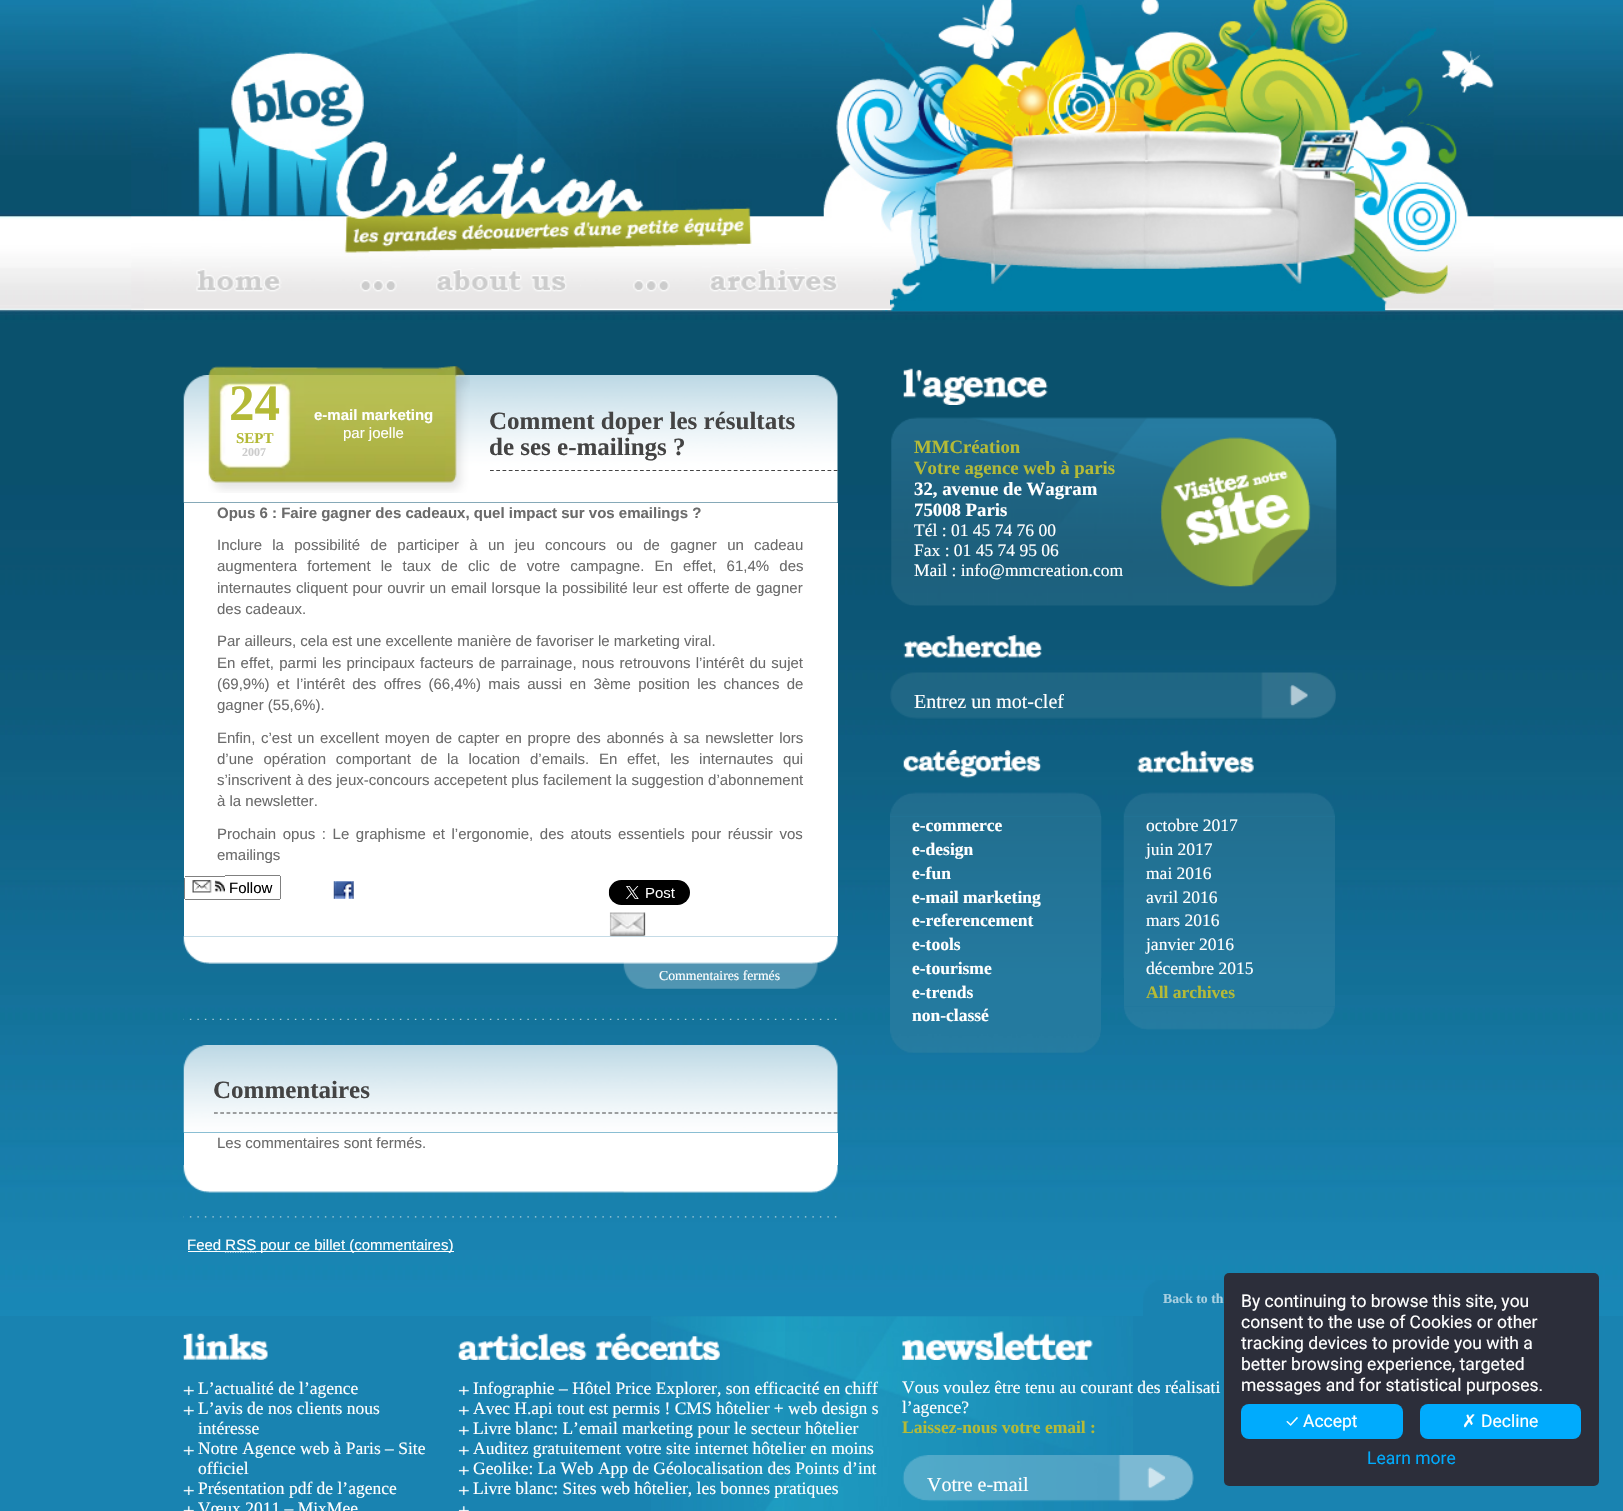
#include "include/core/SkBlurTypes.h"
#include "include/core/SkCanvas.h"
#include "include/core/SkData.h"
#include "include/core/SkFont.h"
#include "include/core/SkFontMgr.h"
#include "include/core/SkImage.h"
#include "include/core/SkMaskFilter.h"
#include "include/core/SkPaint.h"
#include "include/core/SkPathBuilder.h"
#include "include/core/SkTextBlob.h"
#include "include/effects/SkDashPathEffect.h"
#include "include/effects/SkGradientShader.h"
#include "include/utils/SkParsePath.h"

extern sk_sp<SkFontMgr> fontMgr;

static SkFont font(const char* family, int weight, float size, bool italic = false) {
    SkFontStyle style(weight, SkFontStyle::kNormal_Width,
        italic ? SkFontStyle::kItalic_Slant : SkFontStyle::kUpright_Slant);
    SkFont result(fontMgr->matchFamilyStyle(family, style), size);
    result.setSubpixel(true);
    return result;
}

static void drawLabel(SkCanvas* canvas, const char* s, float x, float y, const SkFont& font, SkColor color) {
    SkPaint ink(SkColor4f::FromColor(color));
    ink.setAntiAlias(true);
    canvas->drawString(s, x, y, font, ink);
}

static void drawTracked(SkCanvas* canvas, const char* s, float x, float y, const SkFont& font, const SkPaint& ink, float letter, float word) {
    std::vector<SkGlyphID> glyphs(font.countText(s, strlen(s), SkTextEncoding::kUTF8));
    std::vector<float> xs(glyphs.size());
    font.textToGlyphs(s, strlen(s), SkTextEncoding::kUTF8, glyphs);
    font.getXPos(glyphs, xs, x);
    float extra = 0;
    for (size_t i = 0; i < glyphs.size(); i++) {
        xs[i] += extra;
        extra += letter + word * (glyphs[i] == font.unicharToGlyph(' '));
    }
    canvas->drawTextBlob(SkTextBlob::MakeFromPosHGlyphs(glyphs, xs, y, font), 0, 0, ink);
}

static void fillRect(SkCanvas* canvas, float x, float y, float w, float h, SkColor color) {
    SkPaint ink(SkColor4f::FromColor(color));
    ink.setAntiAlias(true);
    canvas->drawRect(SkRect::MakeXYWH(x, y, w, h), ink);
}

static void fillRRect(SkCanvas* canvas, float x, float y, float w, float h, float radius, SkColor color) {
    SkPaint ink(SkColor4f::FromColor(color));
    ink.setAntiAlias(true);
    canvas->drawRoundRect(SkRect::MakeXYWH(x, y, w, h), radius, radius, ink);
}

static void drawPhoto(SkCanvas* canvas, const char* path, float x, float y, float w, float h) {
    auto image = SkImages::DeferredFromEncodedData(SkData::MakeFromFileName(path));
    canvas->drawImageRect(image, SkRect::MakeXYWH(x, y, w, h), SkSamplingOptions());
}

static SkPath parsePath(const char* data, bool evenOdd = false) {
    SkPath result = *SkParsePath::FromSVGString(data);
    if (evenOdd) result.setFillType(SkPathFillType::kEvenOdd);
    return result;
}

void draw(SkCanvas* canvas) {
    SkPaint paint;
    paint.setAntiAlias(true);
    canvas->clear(0xFFFFFFFF);
    drawPhoto(canvas, "assets/img1.png", 0, 0, 1623, 1316);
    drawPhoto(canvas, "assets/img2.png", 131, 0, 1363, 312);
    drawPhoto(canvas, "assets/img3.png", 144, 268, 746, 42);
    drawPhoto(canvas, "assets/img4.png", 215, 278, 65, 12);
    drawPhoto(canvas, "assets/img5.png", 436, 269, 144, 23);
    drawPhoto(canvas, "assets/img6.png", 709, 269, 143, 23);
    drawPhoto(canvas, "assets/img7.png", 183, 1018, 654, 2);
    drawPhoto(canvas, "assets/img8.png", 183, 375, 655, 128);
    drawPhoto(canvas, "assets/img9.png", 208, 366, 262, 127);
    SkFont font1 = font("Liberation Serif", 700, 51);
    drawLabel(canvas, "24", 229, 420, font1, 0xFFB4BA37);
    SkFont font2 = font("Liberation Serif", 700, 15);
    drawLabel(canvas, "SEPT", 236, 443, font2, 0xFFB4BA37);
    SkFont font3 = font("Liberation Serif", 700, 12);
    drawLabel(canvas, "2007", 242, 456, font3, 0xFFCCCCCC);
    SkFont font4 = font("Liberation Sans", 700, 15);
    drawLabel(canvas, "e-mail marketing", 314, 420, font4, 0xFFFFFFFF);
    SkFont font5 = font("Liberation Sans", 400, 15);
    drawLabel(canvas, "par joelle", 343, 438, font5, 0xFFFFFFFF);
    paint.setStroke(true);
    paint.setStrokeWidth(1.2f);
    paint.setColor(0xFF444444);
    paint.setPathEffect(SkDashPathEffect::Make({{3.75f, 2.5f}}, 0));
    canvas->drawPath(parsePath("M490 470.5H837.5"), paint);
    paint.setPathEffect(nullptr);
    SkFont font6 = font("Liberation Serif", 700, 25);
    drawLabel(canvas, "Comment doper les résultats", 489, 429, font6, 0xFF444444);
    drawLabel(canvas, "de ses e-mailings ?", 489, 455, font6, 0xFF444444);
    fillRect(canvas, 184, 503, 654, 433, 0xFFFFFFFF);
    drawLabel(canvas, "Opus 6 : Faire gagner des cadeaux, quel impact sur vos emailings ?", 217, 518, font4, 0xFF6B6B6B);
    paint.setStroke(false);
    paint.setColor(0xFF6B6B6B);
    drawTracked(canvas, "Inclure la possibilité de participer à un jeu concours ou de gagner un cadeau", 217, 550, font5, paint, 0, 6.1f);
    drawTracked(canvas, "augmentera fortement le taux de clic de votre campagne. En effet, 61,4% des", 217, 571, font5, paint, 0, 6);
    drawTracked(canvas, "internautes cliquent pour ouvrir un email lorsque la possibilité leur est offerte de gagner", 217, 593, font5, paint, 0, 0.6f);
    drawLabel(canvas, "des cadeaux.", 217, 614, font5, 0xFF6B6B6B);
    drawLabel(canvas, "Par ailleurs, cela est une excellente manière de favoriser le marketing viral.", 217, 646, font5, 0xFF6B6B6B);
    drawTracked(canvas, "En effet, parmi les principaux facteurs de parrainage, nous retrouvons l’intérêt du sujet", 217, 668, font5, paint, 0, 1.1f);
    drawTracked(canvas, "(69,9%) et l’intérêt des offres (66,4%) mais aussi en 3ème position les chances de", 217, 689, font5, paint, 0, 3.1f);
    drawLabel(canvas, "gagner (55,6%).", 217, 710, font5, 0xFF6B6B6B);
    drawTracked(canvas, "Enfin, c’est un excellent moyen de capter en propre des abonnés à sa newsletter lors", 217, 743, font5, paint, 0, 1.5f);
    drawTracked(canvas, "d’une opération comportant de la location d’emails. En effet, les internautes qui", 217, 764, font5, paint, 0, 5.6f);
    drawLabel(canvas, "s’inscrivent à des jeux-concours accepetent plus facilement la suggestion d’abonnement", 217, 785, font5, 0xFF6B6B6B);
    drawLabel(canvas, "à la newsletter.", 217, 806, font5, 0xFF6B6B6B);
    drawTracked(canvas, "Prochain opus : Le graphisme et l’ergonomie, des atouts essentiels pour réussir vos", 217, 839, font5, paint, 0, 2.4f);
    drawLabel(canvas, "emailings", 217, 860, font5, 0xFF6B6B6B);
    drawPhoto(canvas, "assets/img10.png", 192, 880, 33, 13);
    drawLabel(canvas, "Follow", 229, 893, font5, 0xFF000000);
    fillRect(canvas, 185, 876, 40, 1, 0xFF808080);
    fillRect(canvas, 185, 899, 95, 1, 0xFF808080);
    fillRect(canvas, 184, 878, 1, 21, 0xFF808080);
    fillRect(canvas, 225, 875, 55, 1, 0xFF808080);
    fillRect(canvas, 280, 876, 1, 23, 0xFF808080);
    drawPhoto(canvas, "assets/img11.png", 333, 881, 21, 18);
    drawPhoto(canvas, "assets/img12.png", 608, 880, 82, 25);
    drawPhoto(canvas, "assets/img13.png", 609, 912, 37, 25);
    drawPhoto(canvas, "assets/img14.png", 183, 936, 655, 28);
    drawPhoto(canvas, "assets/img15.png", 623, 963, 195, 26);
    SkFont font7 = font("Liberation Serif", 400, 13.75f);
    drawLabel(canvas, "Commentaires fermés", 659, 980, font7, 0xFFFFFFFF);
    drawPhoto(canvas, "assets/img16.png", 183, 1216, 654, 2);
    drawPhoto(canvas, "assets/img17.png", 183, 1045, 655, 88);
    paint.setStroke(true);
    paint.setColor(0xFF444444);
    paint.setPathEffect(SkDashPathEffect::Make({{3.75f, 2.51f}}, 0));
    canvas->drawPath(parsePath("M214 1113H837.5"), paint);
    paint.setPathEffect(nullptr);
    drawLabel(canvas, "Commentaires", 213, 1098, font6, 0xFF444444);
    fillRect(canvas, 184, 1133, 654, 32, 0xFFFFFFFF);
    drawLabel(canvas, "Les commentaires sont fermés.", 217, 1148, font5, 0xFF6B6B6B);
    drawPhoto(canvas, "assets/img18.png", 183, 1165, 655, 28);
    drawLabel(canvas, "Feed RSS", 187, 1250, font5, 0xFFFFFFFF);
    fillRect(canvas, 188, 1251, 37, 1, 0xFFFFFFFF);
    paint.setColor(0xFFFFFFFF);
    paint.setPathEffect(SkDashPathEffect::Make({{1.25f, 1.25f}}, 0));
    canvas->drawPath(parsePath("M225 1252H256"), paint);
    paint.setPathEffect(nullptr);
    fillRect(canvas, 225, 1251, 229, 1, 0xFFFFFFFF);
    drawLabel(canvas, "pour ce billet (commentaires)", 260, 1250, font5, 0xFFFFFFFF);
    drawPhoto(canvas, "assets/img19.png", 891, 417, 446, 189);
    drawPhoto(canvas, "assets/img20.png", 903, 368, 145, 37);
    SkFont font8 = font("Liberation Serif", 700, 18.75f);
    drawLabel(canvas, "MMCréation", 914, 453, font8, 0xFFB4BA37);
    drawLabel(canvas, "Votre agence web à paris", 914, 474, font8, 0xFFB4BA37);
    drawLabel(canvas, "32, avenue de Wagram", 914, 495, font8, 0xFFFFFFFF);
    drawLabel(canvas, "75008 Paris", 914, 516, font8, 0xFFFFFFFF);
    SkFont font9 = font("Liberation Serif", 400, 17.5f);
    drawLabel(canvas, "Tél : 01 45 74 76 00", 914, 536, font9, 0xFFFFFFFF);
    drawLabel(canvas, "Fax : 01 45 74 95 06", 914, 556, font9, 0xFFFFFFFF);
    drawLabel(canvas, "Mail : info@mmcreation.com", 914, 576, font9, 0xFFFFFFFF);
    drawPhoto(canvas, "assets/img21.png", 903, 635, 139, 23);
    drawPhoto(canvas, "assets/img22.png", 890, 672, 446, 47);
    SkFont font10 = font("Liberation Serif", 400, 20);
    drawLabel(canvas, "Entrez un mot-clef", 914, 708, font10, 0xFFFFFFFF);
    drawPhoto(canvas, "assets/img23.png", 903, 750, 139, 28);
    drawPhoto(canvas, "assets/img24.png", 890, 792, 211, 24);
    fillRect(canvas, 890, 816, 211, 214, 0xFF247A9F);
    drawPhoto(canvas, "assets/img25.png", 890, 816, 212, 162);
    SkFont font11 = font("Liberation Serif", 700, 17.5f);
    drawLabel(canvas, "e-commerce", 912, 831, font11, 0xFFFFFFFF);
    drawLabel(canvas, "e-design", 912, 855, font11, 0xFFFFFFFF);
    drawLabel(canvas, "e-fun", 912, 879, font11, 0xFFFFFFFF);
    drawLabel(canvas, "e-mail marketing", 912, 903, font11, 0xFFFFFFFF);
    drawLabel(canvas, "e-referencement", 912, 926, font11, 0xFFFFFFFF);
    drawLabel(canvas, "e-tools", 912, 950, font11, 0xFFFFFFFF);
    drawLabel(canvas, "e-tourisme", 912, 974, font11, 0xFFFFFFFF);
    drawLabel(canvas, "e-trends", 912, 998, font11, 0xFFFFFFFF);
    drawLabel(canvas, "non-classé", 912, 1021, font11, 0xFFFFFFFF);
    drawPhoto(canvas, "assets/img26.png", 890, 1030, 211, 23);
    drawPhoto(canvas, "assets/img27.png", 1137, 750, 117, 23);
    drawPhoto(canvas, "assets/img28.png", 1123, 792, 212, 25);
    fillRect(canvas, 1124, 816, 211, 190, 0xFF247A9F);
    drawPhoto(canvas, "assets/img29.png", 1123, 816, 212, 162);
    drawLabel(canvas, "octobre 2017", 1146, 831, font9, 0xFFFFFFFF);
    drawLabel(canvas, "juin 2017", 1146, 855, font9, 0xFFFFFFFF);
    drawLabel(canvas, "mai 2016", 1146, 879, font9, 0xFFFFFFFF);
    drawLabel(canvas, "avril 2016", 1146, 903, font9, 0xFFFFFFFF);
    drawLabel(canvas, "mars 2016", 1146, 926, font9, 0xFFFFFFFF);
    drawLabel(canvas, "janvier 2016", 1146, 950, font9, 0xFFFFFFFF);
    drawLabel(canvas, "décembre 2015", 1146, 974, font9, 0xFFFFFFFF);
    drawLabel(canvas, "All archives", 1146, 998, font11, 0xFFB4BA37);
    drawPhoto(canvas, "assets/img30.png", 1124, 1006, 211, 24);
    fillRect(canvas, 0, 1316, 1623, 195, 0xFF1983B1);
    drawPhoto(canvas, "assets/img31.png", 651, 1316, 482, 195);
    drawPhoto(canvas, "assets/img32.png", 1143, 1280, 81, 36);
    SkFont font12 = font("Liberation Serif", 700, 13.75f);
    drawLabel(canvas, "Back to th", 1163, 1303, font12, 0xFFA8D0E1);
    drawPhoto(canvas, "assets/img33.png", 183, 1333, 85, 27);
    drawPhoto(canvas, "assets/img34.png", 183, 1386, 11, 9);
    drawLabel(canvas, "L’actualité de l’agence", 198, 1394, font9, 0xFFFFFFFF);
    drawPhoto(canvas, "assets/img34.png", 183, 1406, 11, 9);
    drawLabel(canvas, "L’avis de nos clients nous", 198, 1414, font9, 0xFFFFFFFF);
    drawLabel(canvas, "intéresse", 198, 1434, font9, 0xFFFFFFFF);
    drawPhoto(canvas, "assets/img34.png", 183, 1446, 11, 9);
    drawLabel(canvas, "Notre Agence web à Paris – Site", 198, 1454, font9, 0xFFFFFFFF);
    drawLabel(canvas, "officiel", 198, 1474, font9, 0xFFFFFFFF);
    drawPhoto(canvas, "assets/img34.png", 183, 1486, 11, 9);
    drawLabel(canvas, "Présentation pdf de l’agence", 198, 1494, font9, 0xFFFFFFFF);
    drawPhoto(canvas, "assets/img35.png", 183, 1506, 11, 5);
    drawLabel(canvas, "Vœux 2011 – MixMee", 198, 1514, font9, 0xFFFFFFFF);
    drawPhoto(canvas, "assets/img36.png", 458, 1332, 262, 28);
    drawPhoto(canvas, "assets/img37.png", 458, 1386, 11, 9);
    drawLabel(canvas, "Infographie – Hôtel Price Explorer, son efficacité en chiff", 473, 1394, font9, 0xFFFFFFFF);
    drawPhoto(canvas, "assets/img37.png", 458, 1406, 11, 9);
    drawLabel(canvas, "Avec H.api tout est permis ! CMS hôtelier + web design s", 473, 1414, font9, 0xFFFFFFFF);
    drawPhoto(canvas, "assets/img37.png", 458, 1426, 11, 9);
    drawLabel(canvas, "Livre blanc: L’email marketing pour le secteur hôtelier", 473, 1434, font9, 0xFFFFFFFF);
    drawPhoto(canvas, "assets/img37.png", 458, 1446, 11, 9);
    drawLabel(canvas, "Auditez gratuitement votre site internet hôtelier en moins", 473, 1454, font9, 0xFFFFFFFF);
    drawPhoto(canvas, "assets/img37.png", 458, 1466, 11, 9);
    drawLabel(canvas, "Geolike: La Web App de Géolocalisation des Points d’int", 473, 1474, font9, 0xFFFFFFFF);
    drawPhoto(canvas, "assets/img37.png", 458, 1486, 11, 9);
    drawLabel(canvas, "Livre blanc: Sites web hôtelier, les bonnes pratiques", 473, 1494, font9, 0xFFFFFFFF);
    drawPhoto(canvas, "assets/img38.png", 458, 1506, 11, 5);
    drawPhoto(canvas, "assets/img39.png", 902, 1331, 191, 29);
    drawLabel(canvas, "Vous voulez être tenu au courant des réalisati", 902, 1393, font9, 0xFFFFFFFF);
    drawLabel(canvas, "l’agence?", 902, 1413, font9, 0xFFFFFFFF);
    drawLabel(canvas, "Laissez-nous votre email :", 902, 1433, font11, 0xFFB4BA37);
    drawPhoto(canvas, "assets/img40.png", 902, 1455, 292, 47);
    drawLabel(canvas, "Votre e-mail", 927, 1491, font10, 0xFFFFFFFF);
    fillRRect(canvas, 1224, 1273, 375, 213, 5, 0xFF2C2E3A);
    SkFont font13 = font("Roboto", 400, 17.5f);
    drawLabel(canvas, "By continuing to browse this site, you", 1241, 1307, font13, 0xFFFFFFFF);
    drawLabel(canvas, "consent to the use of Cookies or other", 1241, 1328, font13, 0xFFFFFFFF);
    drawLabel(canvas, "tracking devices to provide you with a", 1241, 1349, font13, 0xFFFFFFFF);
    drawLabel(canvas, "better browsing experience, targeted", 1241, 1370, font13, 0xFFFFFFFF);
    drawLabel(canvas, "messages and for statistical purposes.", 1241, 1391, font13, 0xFFFFFFFF);
    fillRRect(canvas, 1241, 1404, 162, 35, 8, 0xFF00ABFD);
    SkFont font14 = font("Ubuntu", 400, 17.5f);
    drawLabel(canvas, "✓", 1286, 1427, font14, 0xFFFFFFFF);
    drawLabel(canvas, "Accept", 1303, 1427, font13, 0xFFFFFFFF);
    fillRRect(canvas, 1420, 1404, 161, 35, 8, 0xFF00ABFD);
    SkFont font15 = font("DejaVu Sans", 400, 17.5f);
    drawLabel(canvas, "✗", 1462, 1427, font15, 0xFFFFFFFF);
    drawLabel(canvas, "Decline", 1481, 1427, font13, 0xFFFFFFFF);
    drawLabel(canvas, "Learn more", 1367, 1464, font13, 0xFF00ABFD);
}
